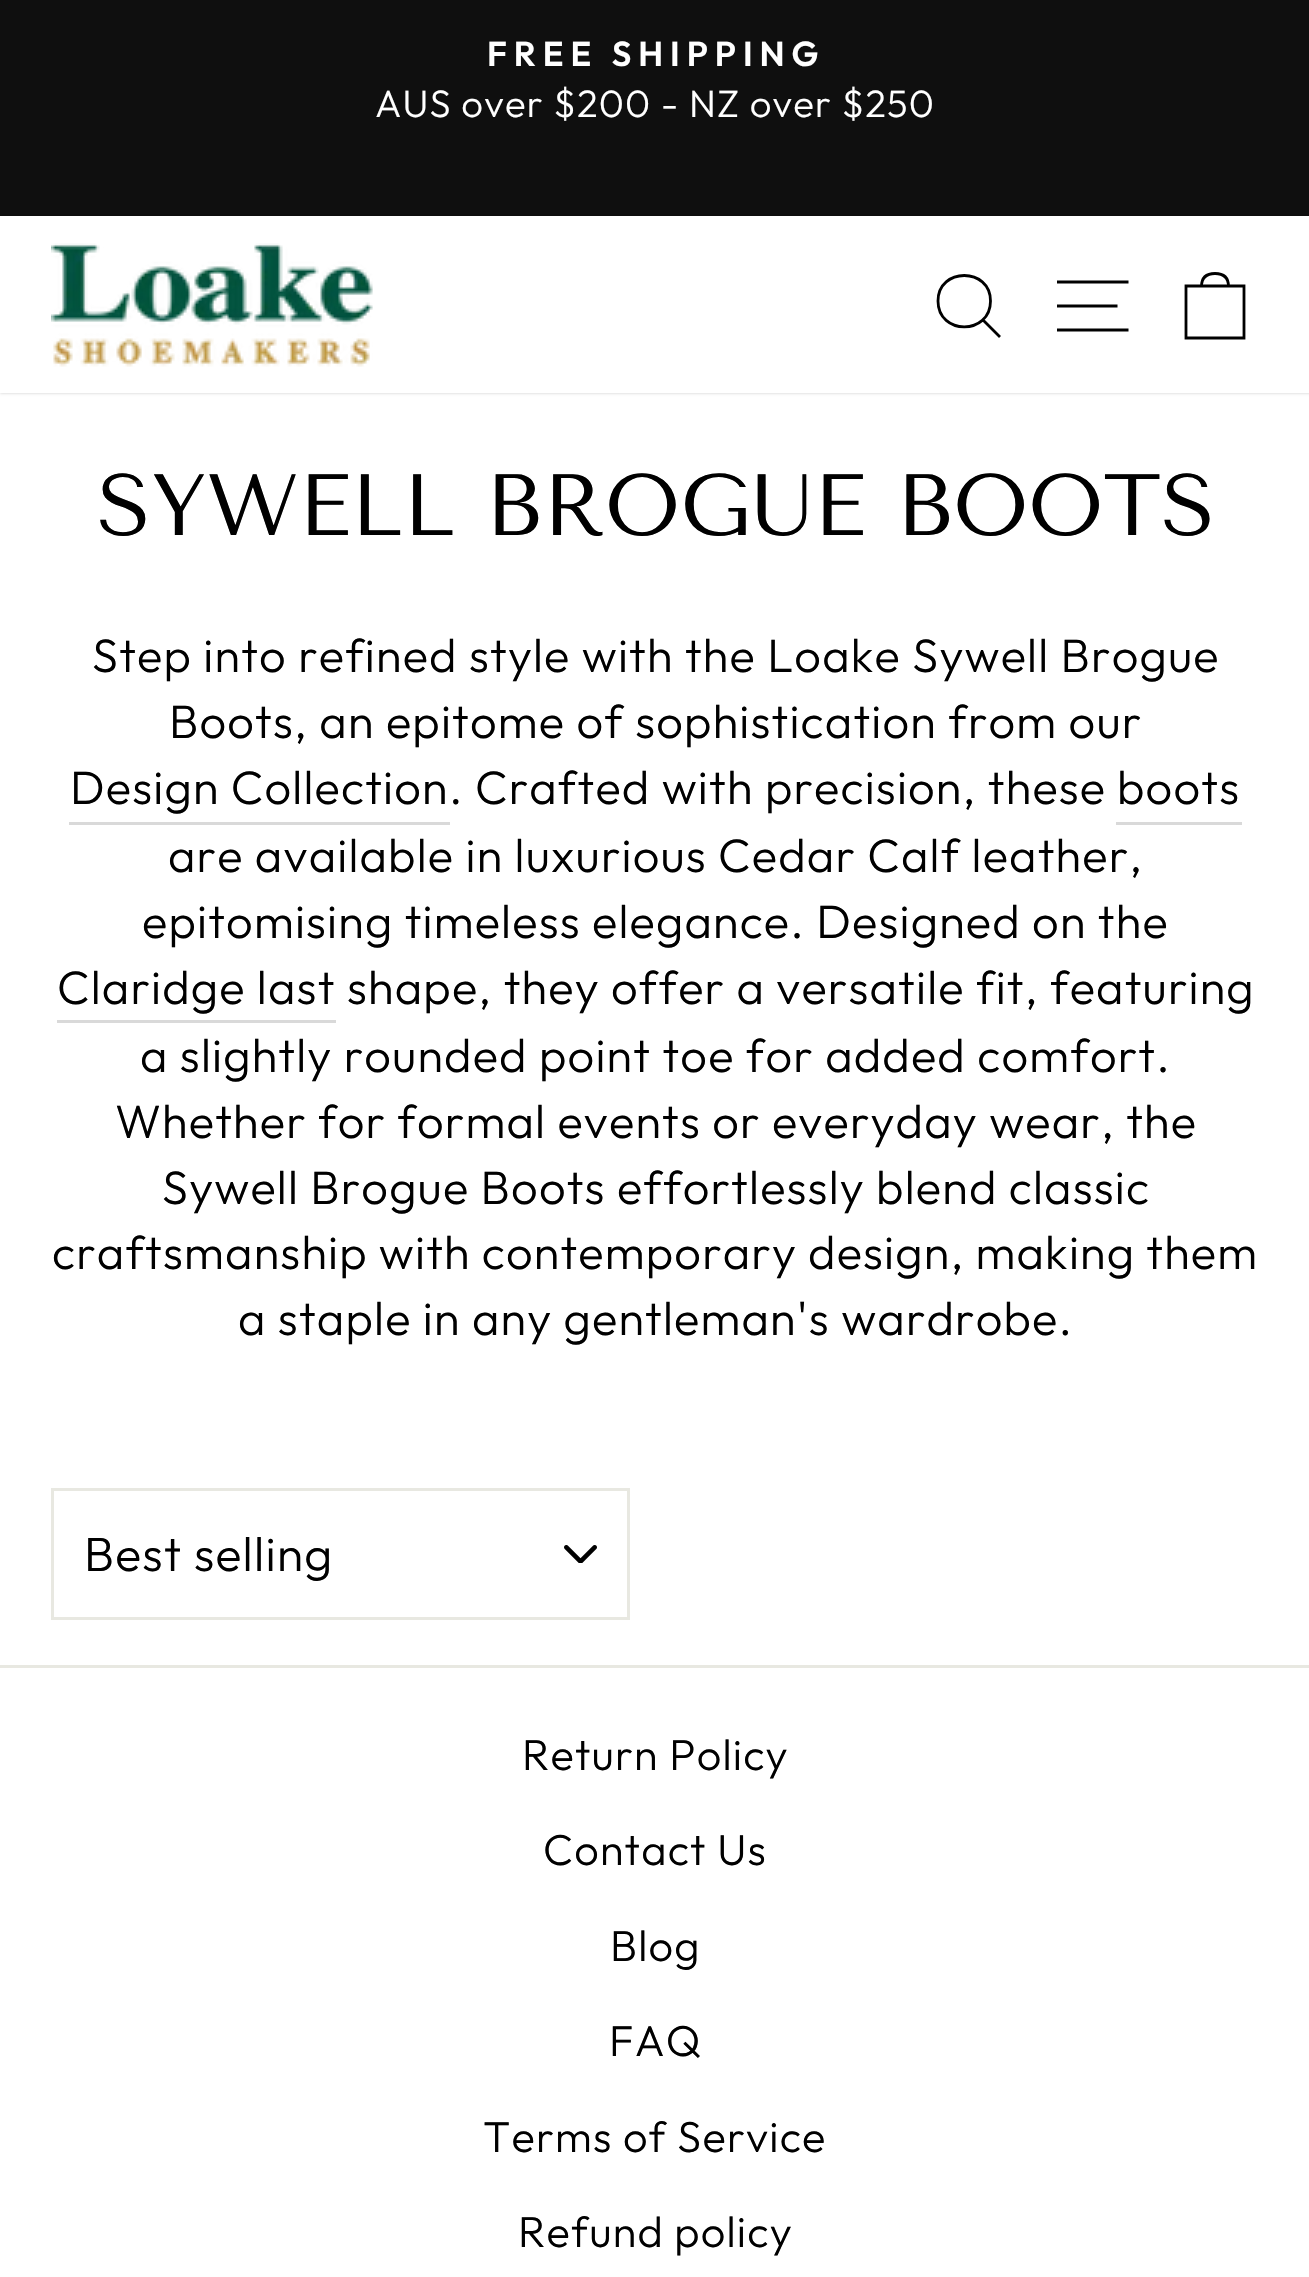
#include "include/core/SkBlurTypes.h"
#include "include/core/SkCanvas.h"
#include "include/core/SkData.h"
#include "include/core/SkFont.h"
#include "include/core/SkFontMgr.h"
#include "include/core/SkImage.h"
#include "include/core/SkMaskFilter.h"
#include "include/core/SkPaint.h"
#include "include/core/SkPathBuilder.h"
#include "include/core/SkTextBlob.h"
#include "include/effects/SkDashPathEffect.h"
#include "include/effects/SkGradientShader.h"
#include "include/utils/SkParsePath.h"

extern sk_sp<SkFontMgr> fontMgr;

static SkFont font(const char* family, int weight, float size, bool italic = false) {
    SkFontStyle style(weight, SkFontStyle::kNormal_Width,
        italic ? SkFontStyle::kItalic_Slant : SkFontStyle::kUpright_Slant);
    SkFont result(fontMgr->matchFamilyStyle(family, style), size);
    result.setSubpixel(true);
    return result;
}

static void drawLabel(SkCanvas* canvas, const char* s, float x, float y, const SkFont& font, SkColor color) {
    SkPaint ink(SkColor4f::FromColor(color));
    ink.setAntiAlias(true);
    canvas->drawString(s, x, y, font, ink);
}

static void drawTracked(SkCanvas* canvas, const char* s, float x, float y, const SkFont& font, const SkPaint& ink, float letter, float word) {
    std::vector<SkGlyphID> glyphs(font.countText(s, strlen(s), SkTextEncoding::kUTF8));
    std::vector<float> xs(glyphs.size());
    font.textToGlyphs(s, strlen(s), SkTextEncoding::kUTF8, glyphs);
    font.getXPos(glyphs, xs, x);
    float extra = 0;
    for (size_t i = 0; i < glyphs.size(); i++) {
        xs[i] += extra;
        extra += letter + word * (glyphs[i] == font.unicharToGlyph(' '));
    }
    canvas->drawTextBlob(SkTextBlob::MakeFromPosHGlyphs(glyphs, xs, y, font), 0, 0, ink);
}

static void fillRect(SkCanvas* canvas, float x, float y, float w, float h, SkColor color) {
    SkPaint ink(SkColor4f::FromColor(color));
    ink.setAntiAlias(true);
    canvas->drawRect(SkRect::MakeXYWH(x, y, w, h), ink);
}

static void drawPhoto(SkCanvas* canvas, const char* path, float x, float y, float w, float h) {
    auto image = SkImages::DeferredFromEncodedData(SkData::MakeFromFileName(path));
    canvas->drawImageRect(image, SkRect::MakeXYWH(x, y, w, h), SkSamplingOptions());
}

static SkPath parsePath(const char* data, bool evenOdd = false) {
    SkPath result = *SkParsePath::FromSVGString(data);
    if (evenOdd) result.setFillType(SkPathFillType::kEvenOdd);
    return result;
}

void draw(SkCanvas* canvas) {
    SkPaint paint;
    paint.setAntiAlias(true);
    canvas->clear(0xFFFFFFFF);
    fillRect(canvas, 0, 0, 1309, 216, 0xFF0F0F0F);
    SkFont font1 = font("Outfit", 600, 34.5f);
    paint.setColor(0xFFFFFFFF);
    drawTracked(canvas, "FREE SHIPPING", 487, 66, font1, paint, 6.9f, 0);
    SkFont font2 = font("Outfit", 300, 38.25f);
    drawTracked(canvas, "AUS over $200 - NZ over $250", 375, 117, font2, paint, 1.17f, 0);
    canvas->save();
    canvas->clipPath(parsePath("M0 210H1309V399H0ZM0 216H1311V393H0Z", true), true);
    paint.setColor(0x33000000);
    paint.setMaskFilter(SkMaskFilter::MakeBlur(kNormal_SkBlurStyle, 1.5f));
    canvas->drawRect(SkRect::MakeXYWH(0, 216, 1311, 177), paint);
    paint.setMaskFilter(nullptr);
    canvas->restore();
    drawPhoto(canvas, "assets/img1.png", 51, 243, 322, 124);
    paint.setStroke(true);
    paint.setStrokeWidth(2.8f);
    paint.setColor(0xFF000000);
    canvas->drawPath(parsePath("M990.5 301C990.5 335.5 938 335.5 938 301C938 267 990.5 267 990.5 301ZM1000 337L983 320"), paint);
    canvas->drawPath(parsePath("M1057 282H1128.5M1057 306H1117.5M1057 330H1128.5"), paint);
    canvas->drawPath(parsePath("M1186 286H1244V338H1186Z"), paint);
    canvas->drawPath(parsePath("M1201.5 286.5C1201.5 276.5 1207.5 273.5 1215 273.5C1222.5 273.5 1228.5 276.5 1228.5 286.5"), paint);
    SkFont font3 = font("Tenor Sans", 400, 86.75f);
    drawLabel(canvas, "SYWELL BROGUE BOOTS", 97, 535, font3, 0xFF000000);
    SkFont font4 = font("Outfit", 300, 46.9f);
    paint.setStroke(false);
    drawTracked(canvas, "Step into refined style with the Loake Sywell Brogue", 92, 672, font4, paint, 1.17f, 0);
    drawTracked(canvas, "Boots, an epitome of sophistication from our", 169, 738, font4, paint, 1.17f, 0);
    fillRect(canvas, 69, 822, 381, 3, 0xFFD9D9D9);
    drawTracked(canvas, "Design Collection", 70, 804, font4, paint, 1.17f, 0);
    drawTracked(canvas, ". Crafted with precision, these", 449, 804, font4, paint, 1.17f, 0);
    fillRect(canvas, 1116, 822, 126, 3, 0xFFD9D9D9);
    drawTracked(canvas, "boots", 1117, 804, font4, paint, 1.17f, 0);
    drawTracked(canvas, "are available in luxurious Cedar Calf leather,", 168, 872, font4, paint, 1.17f, 0);
    drawTracked(canvas, "epitomising timeless elegance. Designed on the", 142, 938, font4, paint, 1.17f, 0);
    fillRect(canvas, 57, 1020, 279, 3, 0xFFD9D9D9);
    drawTracked(canvas, "Claridge last", 57, 1004, font4, paint, 1.17f, 0);
    drawTracked(canvas, "shape, they offer a versatile fit, featuring", 347, 1004, font4, paint, 1.17f, 0);
    drawTracked(canvas, "a slightly rounded point toe for added comfort.", 140, 1072, font4, paint, 1.17f, 0);
    drawTracked(canvas, "Whether for formal events or everyday wear, the", 115, 1138, font4, paint, 1.17f, 0);
    drawTracked(canvas, "Sywell Brogue Boots effortlessly blend classic", 162, 1204, font4, paint, 1.17f, 0);
    drawTracked(canvas, "craftsmanship with contemporary design, making them", 52, 1269, font4, paint, 1.17f, -0.25f);
    drawTracked(canvas, "a staple in any gentleman's wardrobe.", 238, 1335, font4, paint, 1.17f, 0);
    drawPhoto(canvas, "assets/img2.png", 564, 1545, 33, 18);
    paint.setStroke(true);
    paint.setStrokeWidth(3);
    paint.setColor(0xFFE8E8E1);
    canvas->drawRect(SkRect::MakeXYWH(52.5f, 1489.5f, 576, 129), paint);
    SkFont font5 = font("Outfit", 300, 48);
    paint.setStroke(false);
    paint.setColor(0xFF000000);
    drawTracked(canvas, "Best selling", 84, 1571, font5, paint, 1.25f, 0);
    fillRect(canvas, 0, 1665, 1309, 3, 0xFFE8E8E1);
    SkFont font6 = font("Outfit", 300, 43.25f);
    drawTracked(canvas, "Return Policy", 522, 1770, font6, paint, 1.17f, 0);
    drawTracked(canvas, "Contact Us", 543, 1865, font6, paint, 1.17f, 0);
    drawTracked(canvas, "Blog", 610, 1961, font6, paint, 1.17f, 0);
    drawTracked(canvas, "FAQ", 609, 2056, font6, paint, 1.17f, 0);
    drawTracked(canvas, "Terms of Service", 483, 2152, font6, paint, 1.17f, 0);
    drawTracked(canvas, "Refund policy", 518, 2247, font6, paint, 1.17f, 0);
}
